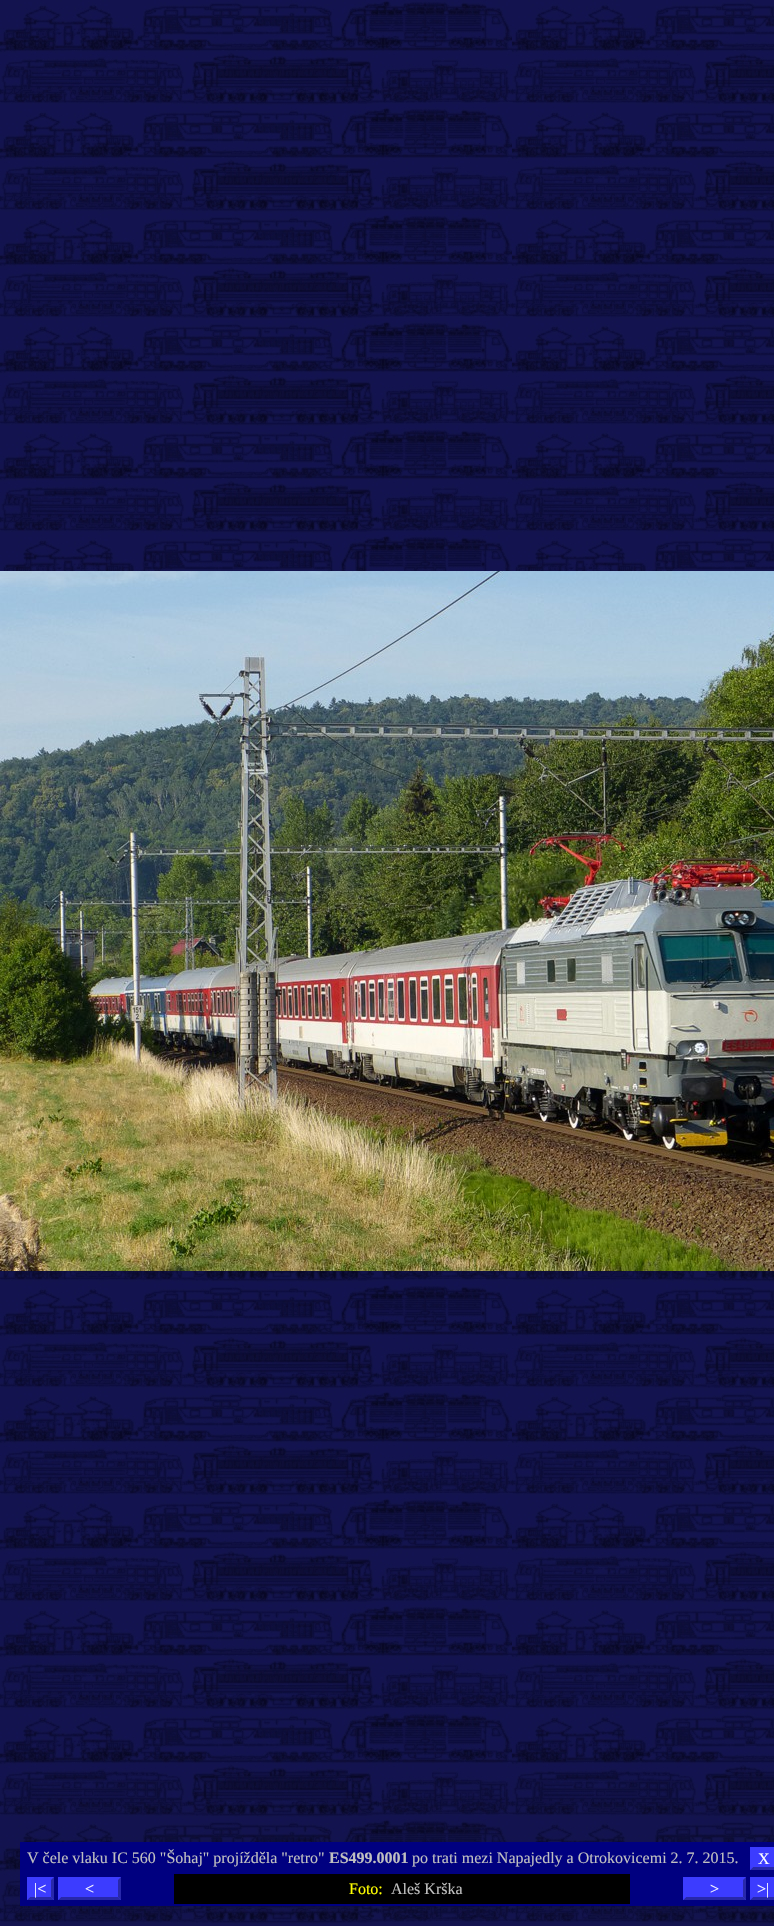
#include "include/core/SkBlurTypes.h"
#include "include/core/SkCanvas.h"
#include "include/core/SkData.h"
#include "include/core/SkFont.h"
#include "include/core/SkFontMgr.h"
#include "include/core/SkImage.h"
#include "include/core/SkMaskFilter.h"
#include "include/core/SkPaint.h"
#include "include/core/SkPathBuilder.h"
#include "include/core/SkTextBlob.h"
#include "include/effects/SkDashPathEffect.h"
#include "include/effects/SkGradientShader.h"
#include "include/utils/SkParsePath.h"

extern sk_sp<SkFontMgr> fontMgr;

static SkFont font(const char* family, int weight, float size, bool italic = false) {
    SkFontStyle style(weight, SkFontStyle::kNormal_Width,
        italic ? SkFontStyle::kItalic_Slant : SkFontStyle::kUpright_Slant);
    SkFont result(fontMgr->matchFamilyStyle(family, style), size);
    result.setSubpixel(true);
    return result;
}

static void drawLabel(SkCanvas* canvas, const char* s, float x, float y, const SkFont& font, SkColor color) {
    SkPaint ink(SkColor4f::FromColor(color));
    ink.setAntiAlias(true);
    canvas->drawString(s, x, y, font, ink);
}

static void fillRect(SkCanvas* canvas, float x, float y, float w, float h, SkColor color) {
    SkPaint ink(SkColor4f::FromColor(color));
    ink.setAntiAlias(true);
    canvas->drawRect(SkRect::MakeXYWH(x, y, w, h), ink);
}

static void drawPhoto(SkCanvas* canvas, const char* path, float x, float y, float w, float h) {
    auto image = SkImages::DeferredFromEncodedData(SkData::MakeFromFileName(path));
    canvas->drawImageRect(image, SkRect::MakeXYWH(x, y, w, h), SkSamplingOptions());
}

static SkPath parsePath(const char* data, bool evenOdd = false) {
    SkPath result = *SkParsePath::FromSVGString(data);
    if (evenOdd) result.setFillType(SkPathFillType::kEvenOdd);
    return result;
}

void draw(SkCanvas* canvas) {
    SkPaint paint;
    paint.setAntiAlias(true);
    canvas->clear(0xFFFFFFFF);
    drawPhoto(canvas, "assets/img1.png", 0, 0, 774, 1926);
    drawPhoto(canvas, "assets/img2.png", 0, 571, 774, 700);
    fillRect(canvas, 20, 1842, 754, 64, 0xFF000080);
    SkFont font1 = font("Liberation Serif", 400, 16);
    drawLabel(canvas, "V čele vlaku IC 560 \"Šohaj\" projížděla \"retro\"", 27, 1863, font1, 0xFFC0C0C0);
    SkFont font2 = font("Liberation Serif", 700, 16);
    drawLabel(canvas, "ES499.0001", 329, 1863, font2, 0xFFC0C0C0);
    drawLabel(canvas, "po trati mezi Napajedly a Otrokovicemi 2. 7. 2015.", 412, 1863, font1, 0xFFC0C0C0);
    fillRect(canvas, 750, 1847, 24, 23, 0xFF3C3CFF);
    drawLabel(canvas, "X", 758, 1864, font1, 0xFFFFFFFF);
    paint.setColor(0xFF2828AA);
    canvas->drawPath(parsePath("M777 1870H750L753 1867H774Z"), paint);
    paint.setColor(0xFF3C3CFF);
    canvas->drawPath(parsePath("M750 1870V1847L753 1850V1867Z"), paint);
    fillRect(canvas, 27, 1877, 27, 23, 0xFF3C3CFF);
    paint.setColor(0xFF2828AA);
    canvas->drawPath(parsePath("M54 1877V1900L51 1897V1880Z"), paint);
    canvas->drawPath(parsePath("M54 1900H27L30 1897H51Z"), paint);
    drawLabel(canvas, "|<", 34, 1894, font1, 0xFFFFFFFF);
    paint.setColor(0xFF3C3CFF);
    canvas->drawPath(parsePath("M27 1900V1877L30 1880V1897Z"), paint);
    fillRect(canvas, 58, 1877, 63, 23, 0xFF3C3CFF);
    drawLabel(canvas, "<", 85, 1894, font1, 0xFFFFFFFF);
    paint.setColor(0xFF2828AA);
    canvas->drawPath(parsePath("M121 1877V1900L118 1897V1880Z"), paint);
    canvas->drawPath(parsePath("M121 1900H58L61 1897H118Z"), paint);
    paint.setColor(0xFF3C3CFF);
    canvas->drawPath(parsePath("M58 1900V1877L61 1880V1897Z"), paint);
    fillRect(canvas, 174, 1874, 456, 30, 0xFF000000);
    drawLabel(canvas, "Foto:", 349, 1894, font1, 0xFFFFFF00);
    drawLabel(canvas, "Aleš Krška", 391, 1894, font1, 0xFFC0C0C0);
    fillRect(canvas, 683, 1877, 63, 23, 0xFF3C3CFF);
    drawLabel(canvas, ">", 710, 1894, font1, 0xFFFFFFFF);
    paint.setColor(0xFF2828AA);
    canvas->drawPath(parsePath("M746 1877V1900L743 1897V1880Z"), paint);
    canvas->drawPath(parsePath("M746 1900H683L686 1897H743Z"), paint);
    paint.setColor(0xFF3C3CFF);
    canvas->drawPath(parsePath("M683 1900V1877L686 1880V1897Z"), paint);
    fillRect(canvas, 750, 1877, 24, 23, 0xFF3C3CFF);
    paint.setColor(0xFF2828AA);
    canvas->drawPath(parsePath("M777 1900H750L753 1897H774Z"), paint);
    drawLabel(canvas, ">|", 757, 1894, font1, 0xFFFFFFFF);
    paint.setColor(0xFF3C3CFF);
    canvas->drawPath(parsePath("M750 1900V1877L753 1880V1897Z"), paint);
}
